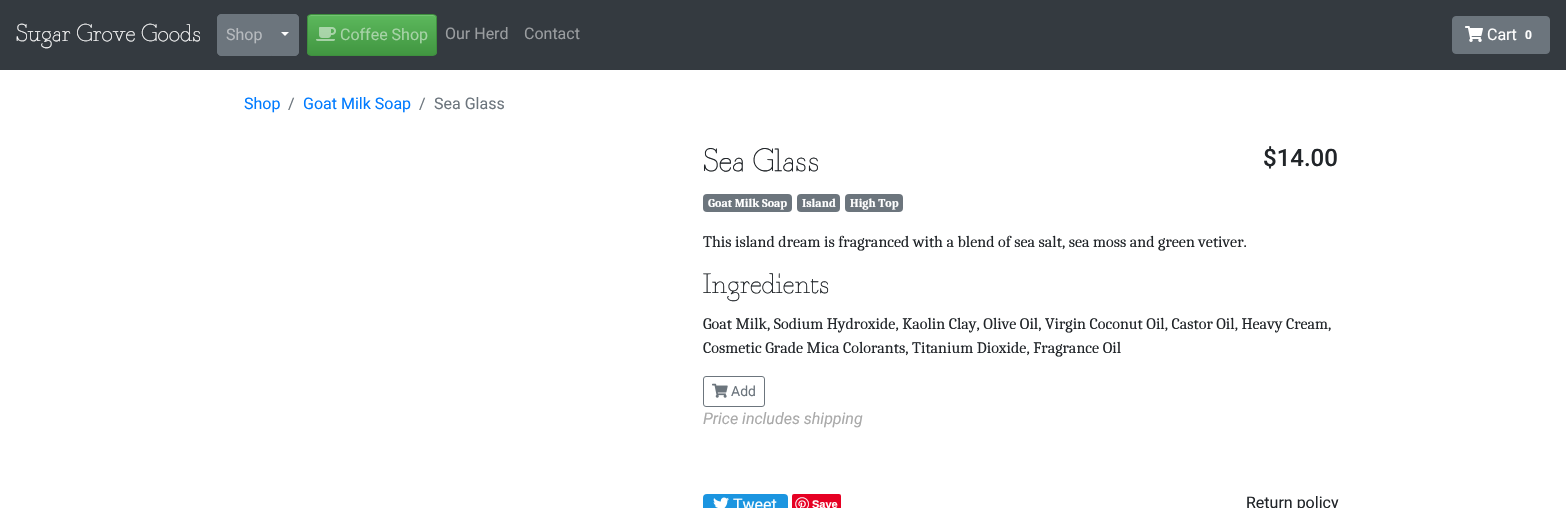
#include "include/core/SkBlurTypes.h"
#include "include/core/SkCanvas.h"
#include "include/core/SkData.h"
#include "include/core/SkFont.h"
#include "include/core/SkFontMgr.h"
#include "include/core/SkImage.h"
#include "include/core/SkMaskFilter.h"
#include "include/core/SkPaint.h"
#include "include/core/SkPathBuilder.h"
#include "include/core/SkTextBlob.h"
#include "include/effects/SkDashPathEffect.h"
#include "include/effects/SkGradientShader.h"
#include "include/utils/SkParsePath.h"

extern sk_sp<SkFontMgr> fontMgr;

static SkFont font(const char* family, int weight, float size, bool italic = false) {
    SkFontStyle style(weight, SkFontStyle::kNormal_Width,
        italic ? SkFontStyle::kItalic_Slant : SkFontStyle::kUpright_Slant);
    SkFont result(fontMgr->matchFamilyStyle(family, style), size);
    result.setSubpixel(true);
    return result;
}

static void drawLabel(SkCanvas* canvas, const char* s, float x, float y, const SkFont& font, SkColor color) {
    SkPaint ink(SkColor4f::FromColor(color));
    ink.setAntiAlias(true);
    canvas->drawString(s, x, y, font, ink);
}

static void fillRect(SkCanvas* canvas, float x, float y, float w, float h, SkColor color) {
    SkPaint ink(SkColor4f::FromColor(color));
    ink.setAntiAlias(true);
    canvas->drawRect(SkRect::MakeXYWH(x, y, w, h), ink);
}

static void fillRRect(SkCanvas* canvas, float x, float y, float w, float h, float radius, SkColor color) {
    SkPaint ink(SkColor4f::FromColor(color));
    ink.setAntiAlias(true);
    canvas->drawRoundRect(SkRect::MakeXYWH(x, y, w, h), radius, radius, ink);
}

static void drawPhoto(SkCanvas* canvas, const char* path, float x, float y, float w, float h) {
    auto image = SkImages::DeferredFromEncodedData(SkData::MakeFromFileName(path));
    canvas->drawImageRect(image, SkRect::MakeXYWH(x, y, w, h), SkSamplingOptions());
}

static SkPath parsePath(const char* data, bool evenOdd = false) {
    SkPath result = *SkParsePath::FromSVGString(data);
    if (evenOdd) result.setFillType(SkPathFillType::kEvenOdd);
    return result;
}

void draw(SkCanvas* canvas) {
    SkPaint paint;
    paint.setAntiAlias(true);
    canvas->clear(0xFFFFFFFF);
    fillRect(canvas, 0, 0, 1566, 70, 0xFF343A40);
    SkFont font1 = font("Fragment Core", 400, 24);
    drawLabel(canvas, "Sugar Grove Goods", 16, 41, font1, 0xFFFFFFFF);
    paint.setColor(0xFF6C757D);
    canvas->drawPath(parsePath("M221 14.5H271.5V55.5H221C219 55.5 217.5 54 217.5 52V18C217.5 16 219 14.5 221 14.5Z"), paint);
    paint.setStroke(true);
    paint.setStrokeWidth(1);
    canvas->drawPath(parsePath("M221 14.5H271.5V55.5H221C219 55.5 217.5 54 217.5 52V18C217.5 16 219 14.5 221 14.5Z"), paint);
    SkFont font2 = font("Roboto", 400, 16);
    drawLabel(canvas, "Shop", 226, 40, font2, 0xFFB6BABE);
    paint.setStroke(false);
    canvas->drawPath(parsePath("M271.5 14.5H295C297 14.5 298.5 16 298.5 18V52C298.5 54 297 55.5 295 55.5H271.5Z"), paint);
    paint.setStroke(true);
    canvas->drawPath(parsePath("M271.5 14.5H295C297 14.5 298.5 16 298.5 18V52C298.5 54 297 55.5 295 55.5H271.5Z"), paint);
    paint.setStroke(false);
    paint.setColor(0xFFFFFFFF);
    canvas->drawPath(parsePath("M281 32H289L285 36Z"), paint);
    canvas->save();
    canvas->clipPath(parsePath("M311 14H433C435 14 437 16 437 18V52C437 54 435 56 433 56H311C309 56 307 54 307 52V18C307 16 309 14 311 14Z"), true);
    {
        const SkColor colors[] = {0xFF5CB85C, 0xFF419641};
        const float stops[] = {0, 1};
        const SkPoint ends[] = {{372, 15}, {372, 55}};
        paint.setShader(SkGradientShader::MakeLinear(ends, colors, stops, 2, SkTileMode::kClamp));
        paint.setAlpha(255);
    }
    canvas->drawRect(SkRect::MakeXYWH(307, 15, 130, 40), paint);
    canvas->restore();
    paint.setShader(nullptr);
    paint.setColor(0xFF74C374);
    canvas->drawPath(parsePath("M311 16H433C435 16 436 17 436 19C436 17 436 15 434 15H311C309 15 308 17 308 19C308 17 309 16 311 16Z"), paint);
    paint.setStroke(true);
    paint.setColor(0xFF3E8F3E);
    canvas->drawRoundRect(SkRect::MakeXYWH(307.5f, 14.5f, 129, 41), 3.5f, 3.5f, paint);
    drawPhoto(canvas, "assets/img1.png", 316, 27, 20, 14);
    drawLabel(canvas, "Coffee Shop", 340, 40, font2, 0xFFA7D3A7);
    drawLabel(canvas, "Our Herd", 445, 39, font2, 0xFF9A9DA0);
    drawLabel(canvas, "Contact", 524, 39, font2, 0xFF9A9DA0);
    paint.setStroke(false);
    paint.setColor(0xFF6C757D);
    canvas->drawRoundRect(SkRect::MakeXYWH(1452.5f, 16.5f, 97, 37), 3.5f, 3.5f, paint);
    paint.setStroke(true);
    canvas->drawRoundRect(SkRect::MakeXYWH(1452.5f, 16.5f, 97, 37), 3.5f, 3.5f, paint);
    drawPhoto(canvas, "assets/img2.png", 1465, 26, 18, 16);
    drawLabel(canvas, "Cart", 1487, 40, font2, 0xFFFFFFFF);
    SkFont font3 = font("Roboto", 700, 12);
    drawLabel(canvas, "0", 1525, 39, font3, 0xFFFFFFFF);
    drawLabel(canvas, "Shop", 244, 109, font2, 0xFF007BFF);
    drawLabel(canvas, "/", 288, 109, font2, 0xFF6C757D);
    drawLabel(canvas, "Goat Milk Soap", 303, 109, font2, 0xFF007BFF);
    drawLabel(canvas, "/", 419, 109, font2, 0xFF6C757D);
    drawLabel(canvas, "Sea Glass", 434, 109, font2, 0xFF6C757D);
    SkFont font4 = font("Fragment Core", 400, 32);
    drawLabel(canvas, "Sea Glass", 703, 171, font4, 0xFF212529);
    SkFont font5 = font("Roboto", 500, 24);
    drawLabel(canvas, "$14.00", 1263, 166, font5, 0xFF212529);
    fillRRect(canvas, 703, 194, 89, 18, 4, 0xFF6C757D);
    SkFont font6 = font("Caladea", 700, 12);
    drawLabel(canvas, "Goat Milk Soap", 708, 207, font6, 0xFFFFFFFF);
    fillRRect(canvas, 797, 194, 43, 18, 4, 0xFF6C757D);
    drawLabel(canvas, "Island", 802, 207, font6, 0xFFFFFFFF);
    fillRRect(canvas, 845, 194, 58, 18, 4, 0xFF6C757D);
    drawLabel(canvas, "High Top", 850, 207, font6, 0xFFFFFFFF);
    SkFont font7 = font("Caladea", 400, 16);
    drawLabel(canvas, "This island dream is fragranced with a blend of sea salt, sea moss and green vetiver.", 703, 247, font7, 0xFF212529);
    SkFont font8 = font("Fragment Core", 400, 28);
    drawLabel(canvas, "Ingredients", 703, 293, font8, 0xFF212529);
    drawLabel(canvas, "Goat Milk, Sodium Hydroxide, Kaolin Clay, Olive Oil, Virgin Coconut Oil, Castor Oil, Heavy Cream,", 703, 329, font7, 0xFF212529);
    drawLabel(canvas, "Cosmetic Grade Mica Colorants, Titanium Dioxide, Fragrance Oil", 703, 353, font7, 0xFF212529);
    canvas->drawRoundRect(SkRect::MakeXYWH(703.5f, 376.5f, 61, 30), 2.5f, 2.5f, paint);
    drawPhoto(canvas, "assets/img3.png", 712, 383, 16, 15);
    SkFont font9 = font("Roboto", 400, 14);
    drawLabel(canvas, "Add", 731, 396, font9, 0xFF6C757D);
    SkFont font10 = font("Roboto", 400, 16, true);
    drawLabel(canvas, "Price includes shipping", 703, 424, font10, 0xFFA9A9A9);
    fillRRect(canvas, 703, 494, 85, 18, 4, 0xFF1B95E0);
    drawPhoto(canvas, "assets/img4.png", 713, 497, 16, 11);
    drawLabel(canvas, "Tweet", 733, 510, font2, 0xFFFFFFFF);
    fillRRect(canvas, 792, 494, 49, 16, 2, 0xFFE60023);
    drawPhoto(canvas, "assets/img5.png", 795, 497, 14, 11);
    SkFont font11 = font("Liberation Sans", 700, 11);
    drawLabel(canvas, "Save", 812, 508, font11, 0xFFFFFFFF);
    drawLabel(canvas, "Return policy", 1246, 508, font2, 0xFF212529);
}
